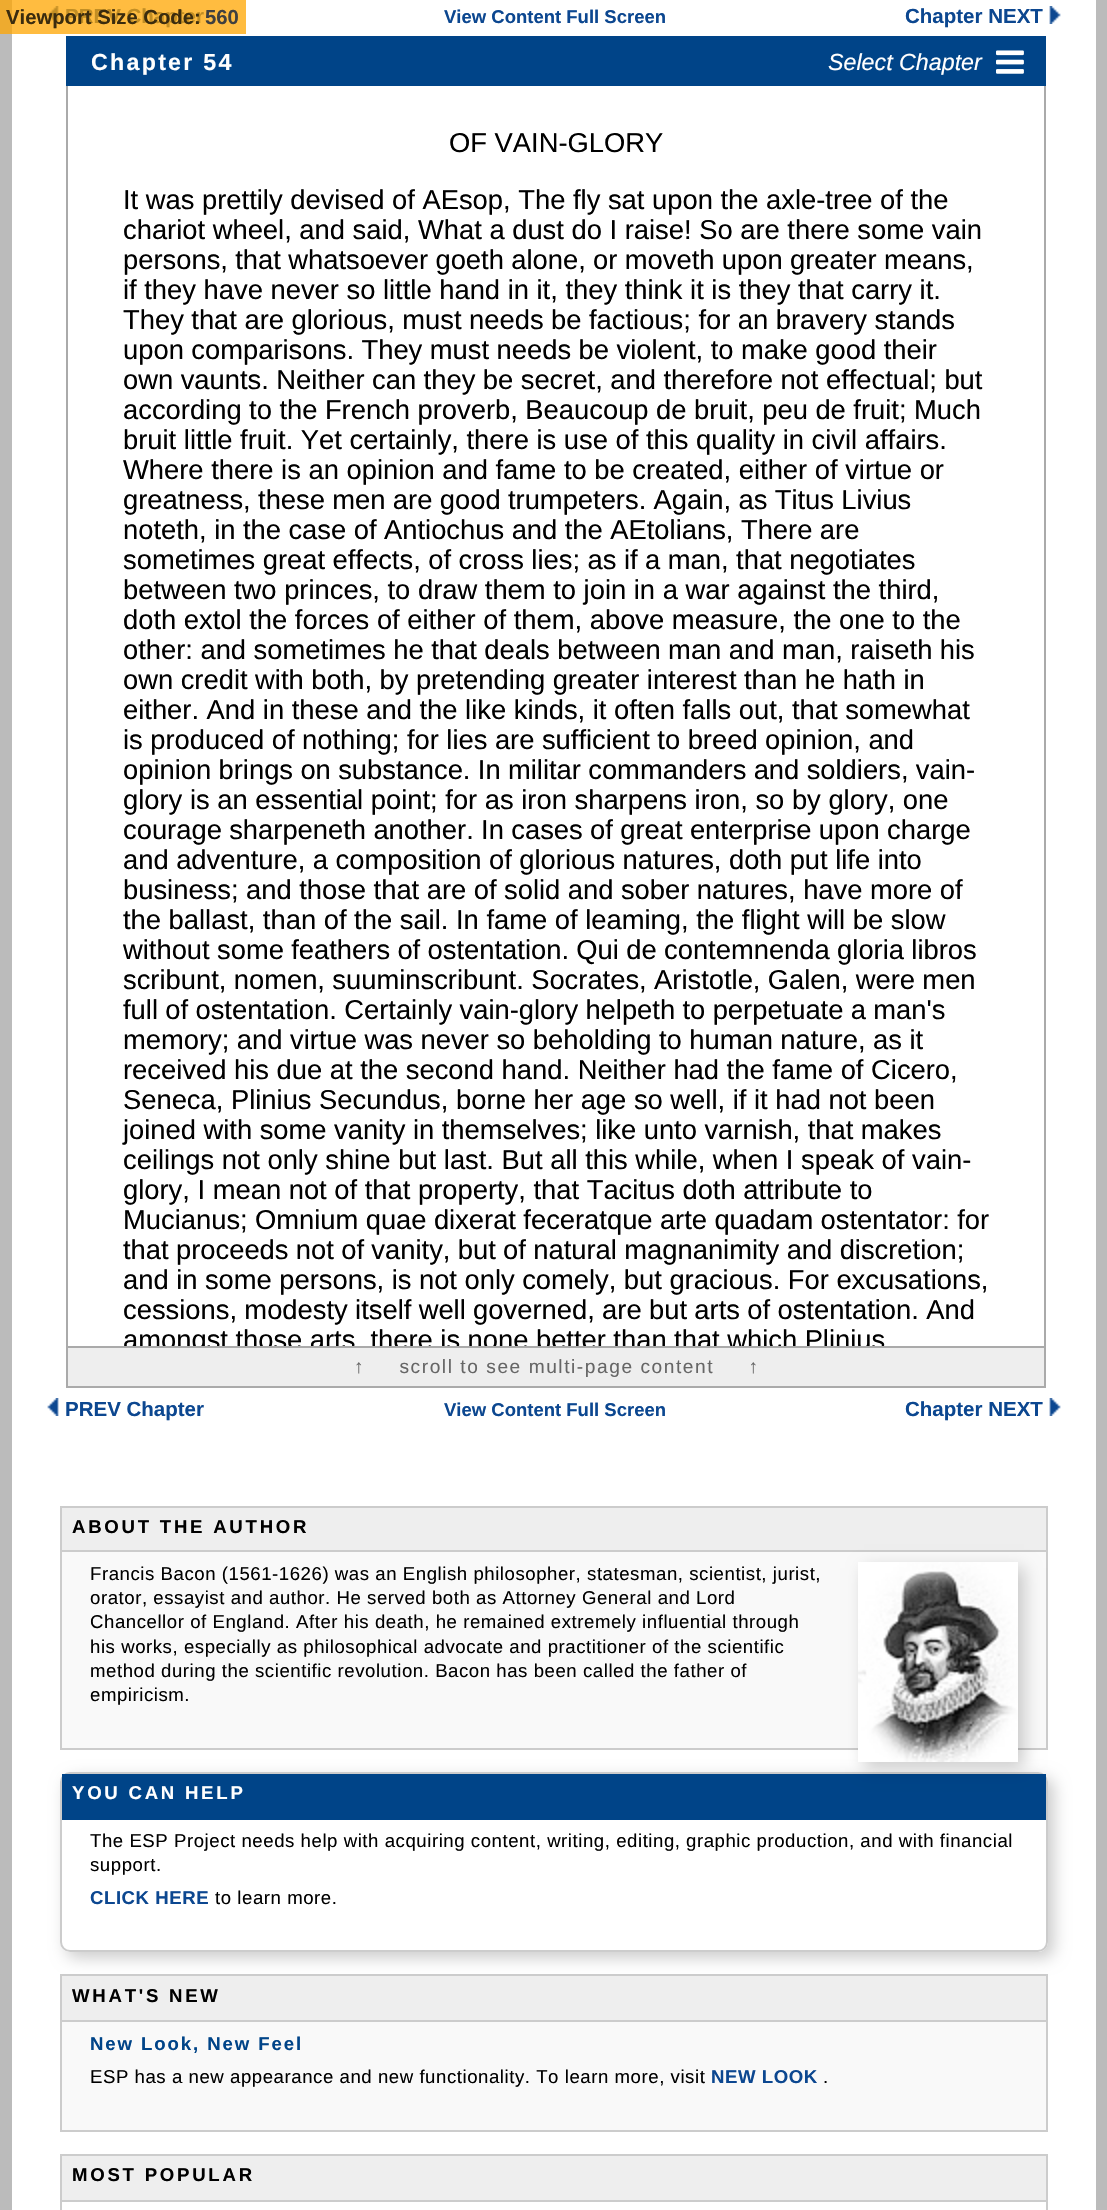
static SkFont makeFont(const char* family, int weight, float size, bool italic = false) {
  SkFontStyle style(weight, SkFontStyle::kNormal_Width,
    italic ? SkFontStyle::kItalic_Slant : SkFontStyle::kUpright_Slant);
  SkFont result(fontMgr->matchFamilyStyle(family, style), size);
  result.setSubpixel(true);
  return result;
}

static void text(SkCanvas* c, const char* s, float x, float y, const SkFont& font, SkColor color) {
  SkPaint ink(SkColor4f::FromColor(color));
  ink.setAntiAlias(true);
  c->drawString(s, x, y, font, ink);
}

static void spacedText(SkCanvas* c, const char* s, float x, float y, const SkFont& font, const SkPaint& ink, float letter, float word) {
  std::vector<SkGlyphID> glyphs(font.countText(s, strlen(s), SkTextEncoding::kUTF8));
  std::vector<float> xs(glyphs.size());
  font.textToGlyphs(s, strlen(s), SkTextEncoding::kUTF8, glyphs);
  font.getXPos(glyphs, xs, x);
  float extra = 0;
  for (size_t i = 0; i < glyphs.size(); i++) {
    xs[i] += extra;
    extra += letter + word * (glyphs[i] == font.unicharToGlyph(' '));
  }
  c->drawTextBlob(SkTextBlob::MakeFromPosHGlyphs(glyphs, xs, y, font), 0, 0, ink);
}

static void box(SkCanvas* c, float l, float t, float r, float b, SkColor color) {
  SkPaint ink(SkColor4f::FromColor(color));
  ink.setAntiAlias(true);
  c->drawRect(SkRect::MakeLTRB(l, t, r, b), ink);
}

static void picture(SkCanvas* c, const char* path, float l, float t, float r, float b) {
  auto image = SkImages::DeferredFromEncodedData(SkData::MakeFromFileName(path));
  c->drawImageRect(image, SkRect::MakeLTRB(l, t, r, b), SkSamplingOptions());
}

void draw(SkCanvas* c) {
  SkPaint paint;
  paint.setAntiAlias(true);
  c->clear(0xffbbbbbb);
  box(c, 0, 0, 12, 34, 0xffeeab2f);
  box(c, 12, 0, 1096, 2210, 0xffffffff);
  box(c, 12, 0, 246, 34, 0xffffbc40);
  picture(c, "img_01.png", 47, 6, 59, 24);
  SkFont face1 = makeFont("Liberation Sans", 700, 20.5f);
  text(c, "PREV Chapter", 65, 23, face1, 0xffc28e24);
  SkFont face2 = makeFont("Liberation Sans", 700, 18.5f);
  text(c, "View Content Full Screen", 444, 23, face2, 0xff0c4790);
  text(c, "Chapter NEXT", 905, 23, face1, 0xff0c4790);
  picture(c, "img_02.png", 1049, 6, 1061, 24);
  box(c, 66, 36, 1046, 86, 0xff004488);
  SkFont face3 = makeFont("Liberation Sans", 700, 23.25f);
  paint.setColor(0xffffffff);
  spacedText(c, "Chapter 54", 91, 70, face3, paint, 2.25f, 0);
  SkFont face4 = makeFont("Liberation Sans", 400, 23.25f, true);
  text(c, "Select Chapter", 828, 70, face4, 0xffffffff);
  picture(c, "img_03.png", 996, 50, 1024, 74);
  box(c, 1044, 86, 1046, 1346, 0xffaaaaaa);
  box(c, 66, 86, 68, 1346, 0xffaaaaaa);
  SkFont face5 = makeFont("Liberation Sans", 400, 27.35f);
  text(c, "OF VAIN-GLORY", 449, 152, face5, 0xff000000);
  text(c, "It was prettily devised of AEsop, The fly sat upon the axle-tree of the", 123, 209, face5, 0xff000000);
  text(c, "chariot wheel, and said, What a dust do I raise! So are there some vain", 123, 239, face5, 0xff000000);
  paint.setColor(0xff000000);
  spacedText(c, "persons, that whatsoever goeth alone, or moveth upon greater means,", 123, 269, face5, paint, 0, -0.25f);
  text(c, "if they have never so little hand in it, they think it is they that carry it.", 123, 299, face5, 0xff000000);
  spacedText(c, "They that are glorious, must needs be factious; for an bravery stands", 123, 329, face5, paint, 0, -0.1f);
  spacedText(c, "upon comparisons. They must needs be violent, to make good their", 123, 359, face5, paint, 0, -0.1f);
  spacedText(c, "own vaunts. Neither can they be secret, and therefore not effectual; but", 123, 389, face5, paint, 0, -0.1f);
  spacedText(c, "according to the French proverb, Beaucoup de bruit, peu de fruit; Much", 123, 419, face5, paint, 0, -0.1f);
  text(c, "bruit little fruit. Yet certainly, there is use of this quality in civil affairs.", 123, 449, face5, 0xff000000);
  text(c, "Where there is an opinion and fame to be created, either of virtue or", 123, 479, face5, 0xff000000);
  spacedText(c, "greatness, these men are good trumpeters. Again, as Titus Livius", 123, 509, face5, paint, 0, -0.25f);
  spacedText(c, "noteth, in the case of Antiochus and the AEtolians, There are", 123, 539, face5, paint, 0, -0.1f);
  spacedText(c, "sometimes great effects, of cross lies; as if a man, that negotiates", 123, 569, face5, paint, 0, -0.1f);
  text(c, "between two princes, to draw them to join in a war against the third,", 123, 599, face5, 0xff000000);
  text(c, "doth extol the forces of either of them, above measure, the one to the", 123, 629, face5, 0xff000000);
  spacedText(c, "other: and sometimes he that deals between man and man, raiseth his", 123, 659, face5, paint, 0, -0.1f);
  spacedText(c, "own credit with both, by pretending greater interest than he hath in", 123, 689, face5, paint, 0, -0.1f);
  text(c, "either. And in these and the like kinds, it often falls out, that somewhat", 123, 719, face5, 0xff000000);
  spacedText(c, "is produced of nothing; for lies are sufficient to breed opinion, and", 123, 749, face5, paint, 0, -0.1f);
  spacedText(c, "opinion brings on substance. In militar commanders and soldiers, vain-", 123, 779, face5, paint, 0, -0.25f);
  text(c, "glory is an essential point; for as iron sharpens iron, so by glory, one", 123, 809, face5, 0xff000000);
  spacedText(c, "courage sharpeneth another. In cases of great enterprise upon charge", 123, 839, face5, paint, 0, -0.25f);
  spacedText(c, "and adventure, a composition of glorious natures, doth put life into", 123, 869, face5, paint, 0, -0.1f);
  spacedText(c, "business; and those that are of solid and sober natures, have more of", 123, 899, face5, paint, 0, -0.1f);
  text(c, "the ballast, than of the sail. In fame of leaming, the flight will be slow", 123, 929, face5, 0xff000000);
  spacedText(c, "without some feathers of ostentation. Qui de contemnenda gloria libros", 123, 959, face5, paint, 0, -0.25f);
  spacedText(c, "scribunt, nomen, suuminscribunt. Socrates, Aristotle, Galen, were men", 123, 989, face5, paint, 0, -0.25f);
  spacedText(c, "full of ostentation. Certainly vain-glory helpeth to perpetuate a man's", 123, 1019, face5, paint, 0, -0.25f);
  spacedText(c, "memory; and virtue was never so beholding to human nature, as it", 123, 1049, face5, paint, 0, -0.1f);
  text(c, "received his due at the second hand. Neither had the fame of Cicero,", 123, 1079, face5, 0xff000000);
  text(c, "Seneca, Plinius Secundus, borne her age so well, if it had not been", 123, 1109, face5, 0xff000000);
  spacedText(c, "joined with some vanity in themselves; like unto varnish, that makes", 123, 1139, face5, paint, 0, -0.1f);
  text(c, "ceilings not only shine but last. But all this while, when I speak of vain-", 123, 1169, face5, 0xff000000);
  text(c, "glory, I mean not of that property, that Tacitus doth attribute to", 123, 1199, face5, 0xff000000);
  spacedText(c, "Mucianus; Omnium quae dixerat feceratque arte quadam ostentator: for", 123, 1229, face5, paint, 0, -0.25f);
  spacedText(c, "that proceeds not of vanity, but of natural magnanimity and discretion;", 123, 1259, face5, paint, 0, -0.25f);
  spacedText(c, "and in some persons, is not only comely, but gracious. For excusations,", 123, 1289, face5, paint, 0, -0.1f);
  spacedText(c, "cessions, modesty itself well governed, are but arts of ostentation. And", 123, 1319, face5, paint, 0, -0.25f);
  c->save();
  c->clipRect(SkRect::MakeLTRB(68, 86, 1044, 1346));
  spacedText(c, "amongst those arts, there is none better than that which Plinius", 123, 1349, face5, paint, 0, -0.1f);
  c->restore();
  paint.setColor(0xffeeeeee);
  c->drawRect(SkRect::MakeLTRB(67, 1347, 1045, 1387), paint);
  paint.setStyle(SkPaint::kStroke_Style);
  paint.setStrokeWidth(2);
  paint.setColor(0xffaaaaaa);
  c->drawRect(SkRect::MakeLTRB(67, 1347, 1045, 1387), paint);
  SkFont face6 = makeFont("Liberation Sans", 400, 19.15f);
  paint.setStyle(SkPaint::kFill_Style);
  paint.setColor(0xff666666);
  spacedText(c, "↑     scroll to see multi-page content     ↑", 354, 1373, face6, paint, 1.55f, 0);
  picture(c, "img_04.png", 47, 1398, 59, 1416);
  text(c, "PREV Chapter", 65, 1416, face1, 0xff0c4790);
  text(c, "View Content Full Screen", 444, 1416, face2, 0xff0c4790);
  text(c, "Chapter NEXT", 905, 1416, face1, 0xff0c4790);
  picture(c, "img_02.png", 1049, 1398, 1061, 1416);
  box(c, 62, 1552, 1046, 1748, 0xfff9f9f9);
  paint.setStyle(SkPaint::kStroke_Style);
  paint.setColor(0xffcccccc);
  c->drawRect(SkRect::MakeLTRB(61, 1507, 1047, 1749), paint);
  box(c, 62, 1508, 1046, 1550, 0xffeeeeee);
  box(c, 62, 1550, 1046, 1552, 0xffcccccc);
  SkFont face7 = makeFont("Liberation Sans", 700, 18.6f);
  paint.setStyle(SkPaint::kFill_Style);
  paint.setColor(0xff000000);
  spacedText(c, "ABOUT THE AUTHOR", 72, 1533, face7, paint, 2.75f, 0);
  SkFont face8 = makeFont("Liberation Sans", 400, 18.6f);
  spacedText(c, "Francis Bacon (1561-1626) was an English philosopher, statesman, scientist, jurist,", 90, 1580, face8, paint, 0.55f, 0);
  spacedText(c, "orator, essayist and author. He served both as Attorney General and Lord", 90, 1604, face8, paint, 0.55f, 0);
  spacedText(c, "Chancellor of England. After his death, he remained extremely influential through", 90, 1628, face8, paint, 0.55f, 0);
  spacedText(c, "his works, especially as philosophical advocate and practitioner of the scientific", 90, 1653, face8, paint, 0.55f, 0);
  spacedText(c, "method during the scientific revolution. Bacon has been called the father of", 90, 1677, face8, paint, 0.55f, 0);
  spacedText(c, "empiricism.", 90, 1701, face8, paint, 0.55f, 0);
  c->save();
  c->clipPath(SkPathBuilder(SkPathFillType::kEvenOdd).moveTo(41, 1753).lineTo(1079, 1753).lineTo(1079, 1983).lineTo(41, 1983).close().moveTo(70, 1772).lineTo(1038, 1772).cubicTo(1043.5f, 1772, 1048, 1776.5f, 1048, 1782).lineTo(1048, 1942).cubicTo(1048, 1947.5f, 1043.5f, 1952, 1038, 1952).lineTo(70, 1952).cubicTo(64.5f, 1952, 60, 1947.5f, 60, 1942).lineTo(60, 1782).cubicTo(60, 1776.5f, 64.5f, 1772, 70, 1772).close().detach(), true);
  paint.setColor(0x33000000);
  paint.setMaskFilter(SkMaskFilter::MakeBlur(kNormal_SkBlurStyle, 8));
  c->drawRoundRect(SkRect::MakeLTRB(66, 1778, 1054, 1958), 10, 10, paint);
  paint.setMaskFilter(nullptr);
  c->restore();
  paint.setStyle(SkPaint::kStroke_Style);
  paint.setColor(0xffcccccc);
  c->drawRoundRect(SkRect::MakeLTRB(61, 1773, 1047, 1951), 9, 9, paint);
  box(c, 62, 1774, 1046, 1820, 0xff004488);
  paint.setStyle(SkPaint::kFill_Style);
  paint.setColor(0x33000000);
  paint.setMaskFilter(SkMaskFilter::MakeBlur(kNormal_SkBlurStyle, 8));
  c->drawRect(SkRect::MakeLTRB(864, 1568, 1024, 1768), paint);
  paint.setMaskFilter(nullptr);
  picture(c, "img_05.png", 858, 1562, 1018, 1762);
  paint.setColor(0xffffffff);
  spacedText(c, "YOU CAN HELP", 72, 1799, face7, paint, 2.75f, 0);
  paint.setColor(0xff000000);
  spacedText(c, "The ESP Project needs help with acquiring content, writing, editing,", 90, 1847, face8, paint, 0.55f, 0);
  spacedText(c, "graphic production, and with financial", 686, 1847, face8, paint, 0.55f, 0);
  spacedText(c, "support.", 90, 1871, face8, paint, 0.55f, 0);
  paint.setColor(0xff0c4790);
  spacedText(c, "CLICK HERE", 90, 1904, face7, paint, 0.55f, 0);
  paint.setColor(0xff000000);
  spacedText(c, "to learn more.", 215, 1904, face8, paint, 0.55f, 0);
  box(c, 62, 2022, 1046, 2130, 0xfff9f9f9);
  paint.setStyle(SkPaint::kStroke_Style);
  paint.setColor(0xffcccccc);
  c->drawRect(SkRect::MakeLTRB(61, 1975, 1047, 2131), paint);
  box(c, 62, 1976, 1046, 2020, 0xffeeeeee);
  box(c, 62, 2020, 1046, 2022, 0xffcccccc);
  paint.setStyle(SkPaint::kFill_Style);
  paint.setColor(0xff000000);
  spacedText(c, "WHAT'S NEW", 72, 2002, face7, paint, 2.75f, 0);
  paint.setColor(0xff004488);
  spacedText(c, "New Look, New Feel", 90, 2050, face7, paint, 1.9f, 0);
  paint.setColor(0xff000000);
  spacedText(c, "ESP has a new appearance and new functionality. To learn more, visit", 90, 2083, face8, paint, 0.55f, 0);
  paint.setColor(0xff0c4790);
  spacedText(c, "NEW LOOK", 711, 2083, face7, paint, 0.55f, 0);
  paint.setColor(0xff000000);
  spacedText(c, ".", 823, 2083, face8, paint, 0.55f, 0);
  paint.setStyle(SkPaint::kStroke_Style);
  paint.setColor(0xffcccccc);
  c->drawRect(SkRect::MakeLTRB(61, 2155, 1047, 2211), paint);
  box(c, 62, 2156, 1046, 2200, 0xffeeeeee);
  box(c, 62, 2200, 1046, 2202, 0xffcccccc);
  paint.setStyle(SkPaint::kFill_Style);
  paint.setColor(0xff000000);
  spacedText(c, "MOST POPULAR", 72, 2181, face7, paint, 2.75f, 0);
  SkFont face9 = makeFont("Liberation Sans", 700, 20.25f);
  text(c, "Viewport Size Code:", 6, 24, face9, 0xff3b2c0e);
  text(c, "560", 205, 24, face9, 0xff404040);
}
